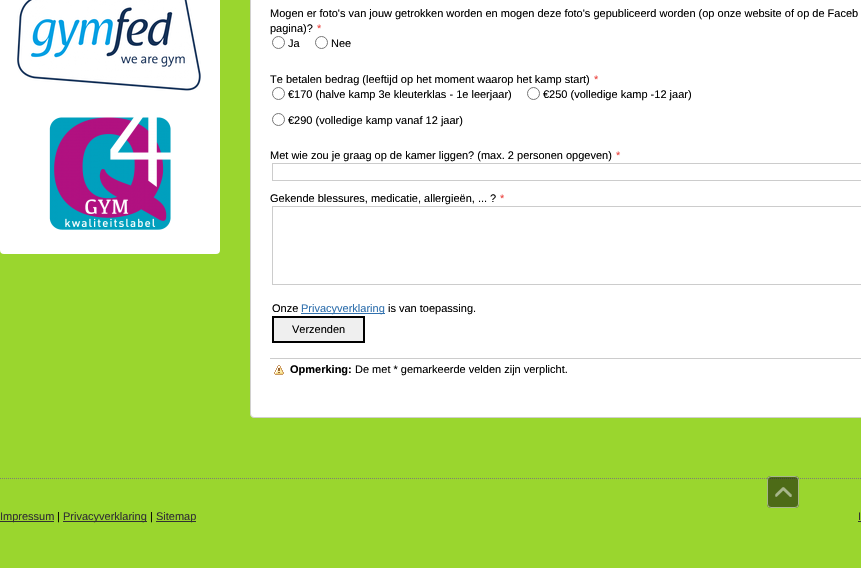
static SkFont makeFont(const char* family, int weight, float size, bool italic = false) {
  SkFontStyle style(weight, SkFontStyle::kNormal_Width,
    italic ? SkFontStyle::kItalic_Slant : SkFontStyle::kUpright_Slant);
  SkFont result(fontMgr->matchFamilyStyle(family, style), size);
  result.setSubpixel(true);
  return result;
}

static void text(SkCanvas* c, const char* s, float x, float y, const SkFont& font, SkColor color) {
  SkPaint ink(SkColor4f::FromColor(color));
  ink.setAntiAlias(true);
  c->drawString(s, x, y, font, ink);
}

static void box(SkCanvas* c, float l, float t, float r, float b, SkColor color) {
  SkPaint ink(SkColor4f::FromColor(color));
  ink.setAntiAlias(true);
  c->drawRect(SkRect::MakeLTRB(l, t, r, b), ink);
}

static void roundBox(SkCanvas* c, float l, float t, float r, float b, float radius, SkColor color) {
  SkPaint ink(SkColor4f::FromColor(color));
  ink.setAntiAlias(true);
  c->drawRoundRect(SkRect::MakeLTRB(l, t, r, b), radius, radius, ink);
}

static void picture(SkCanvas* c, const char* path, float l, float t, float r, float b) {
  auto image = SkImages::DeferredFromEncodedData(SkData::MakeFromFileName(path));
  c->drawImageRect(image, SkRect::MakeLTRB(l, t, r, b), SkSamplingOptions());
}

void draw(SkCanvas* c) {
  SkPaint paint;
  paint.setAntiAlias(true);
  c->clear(0xff9ad62e);
  roundBox(c, 0, -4, 220, 254, 4, 0xffffffff);
  picture(c, "img_01.png", 17, 0, 201, 91);
  picture(c, "img_02.png", 49, 117, 171, 230);
  paint.setColor(0xffffffff);
  c->drawRoundRect(SkRect::MakeLTRB(250.5f, -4.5f, 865.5f, 417.5f), 3.5f, 3.5f, paint);
  paint.setStyle(SkPaint::kStroke_Style);
  paint.setStrokeWidth(1);
  paint.setColor(0xffd1d0ce);
  c->drawRoundRect(SkRect::MakeLTRB(250.5f, -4.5f, 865.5f, 417.5f), 3.5f, 3.5f, paint);
  SkFont face1 = makeFont("Liberation Sans", 400, 11);
  text(c, "Mogen er foto's van jouw getrokken worden en mogen deze foto's gepubliceerd worden (op onze website of op de Faceb", 270, 17, face1, 0xff000000);
  text(c, "pagina)?", 270, 32, face1, 0xff000000);
  text(c, "*", 317, 32, face1, 0xffeb433e);
  paint.setColor(0xff767676);
  c->drawCircle(278.5f, 42.5f, 6, paint);
  text(c, "Ja", 288, 47, face1, 0xff000000);
  c->drawCircle(321.5f, 42.5f, 6, paint);
  text(c, "Nee", 331, 47, face1, 0xff000000);
  text(c, "Te betalen bedrag (leeftijd op het moment waarop het kamp start)", 270, 83, face1, 0xff000000);
  text(c, "*", 594, 83, face1, 0xffeb433e);
  c->drawCircle(278.5f, 93.5f, 6, paint);
  text(c, "€170 (halve kamp 3e kleuterklas - 1e leerjaar)", 288, 98, face1, 0xff000000);
  c->drawCircle(533.5f, 93.5f, 6, paint);
  text(c, "€250 (volledige kamp -12 jaar)", 543, 98, face1, 0xff000000);
  c->drawCircle(278.5f, 119.5f, 6, paint);
  text(c, "€290 (volledige kamp vanaf 12 jaar)", 288, 124, face1, 0xff000000);
  text(c, "Met wie zou je graag op de kamer liggen? (max. 2 personen opgeven)", 270, 159, face1, 0xff000000);
  text(c, "*", 616, 159, face1, 0xffeb433e);
  paint.setColor(0xffcccccc);
  c->drawRect(SkRect::MakeLTRB(272.5f, 163.5f, 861.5f, 180.5f), paint);
  text(c, "Gekende blessures, medicatie, allergieën, ... ?", 270, 202, face1, 0xff000000);
  text(c, "*", 500, 202, face1, 0xffeb433e);
  c->drawRect(SkRect::MakeLTRB(272.5f, 206.5f, 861.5f, 284.5f), paint);
  text(c, "Onze", 272, 312, face1, 0xff000000);
  box(c, 301, 313, 385, 314, 0xff3171ae);
  text(c, "Privacyverklaring", 301, 312, face1, 0xff3171ae);
  text(c, "is van toepassing.", 388, 312, face1, 0xff000000);
  paint.setStyle(SkPaint::kFill_Style);
  paint.setColor(0xffefefef);
  c->drawRect(SkRect::MakeLTRB(273, 317, 364, 342), paint);
  paint.setStyle(SkPaint::kStroke_Style);
  paint.setStrokeWidth(2);
  paint.setColor(0xff000000);
  c->drawRect(SkRect::MakeLTRB(273, 317, 364, 342), paint);
  text(c, "Verzenden", 292, 333, face1, 0xff000000);
  picture(c, "img_03.png", 274, 365, 284, 375);
  box(c, 270, 358, 861, 359, 0xffcccccc);
  SkFont face2 = makeFont("Liberation Sans", 700, 11);
  text(c, "Opmerking:", 290, 373, face2, 0xff000000);
  text(c, "De met * gemarkeerde velden zijn verplicht.", 355, 373, face1, 0xff000000);
  paint.setStrokeWidth(1);
  paint.setColor(0xff7f7f72);
  paint.setPathEffect(SkDashPathEffect::Make({{1, 1}}, 0));
  c->drawPath(SkPathBuilder().moveTo(0, 478.5f).lineTo(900, 478.5f).detach(), paint);
  paint.setPathEffect(nullptr);
  box(c, 0, 521, 54, 522, 0xff323232);
  text(c, "Impressum", 0, 520, face1, 0xff323232);
  text(c, "|", 57, 520, face1, 0xff000000);
  box(c, 63, 521, 147, 522, 0xff323232);
  text(c, "Privacyverklaring", 63, 520, face1, 0xff323232);
  text(c, "|", 150, 520, face1, 0xff000000);
  box(c, 156, 521, 196, 522, 0xff323232);
  text(c, "Sitemap", 156, 520, face1, 0xff323232);
  text(c, "I", 858, 520, face1, 0xff323232);
  box(c, 858, 521, 861, 522, 0xff323232);
  roundBox(c, 767, 476, 799, 508, 4, 0x80000000);
  paint.setColor(0x80ffffff);
  c->drawRoundRect(SkRect::MakeLTRB(767.5f, 476.5f, 798.5f, 507.5f), 3.5f, 3.5f, paint);
  picture(c, "img_04.png", 775, 487, 792, 497);
}
